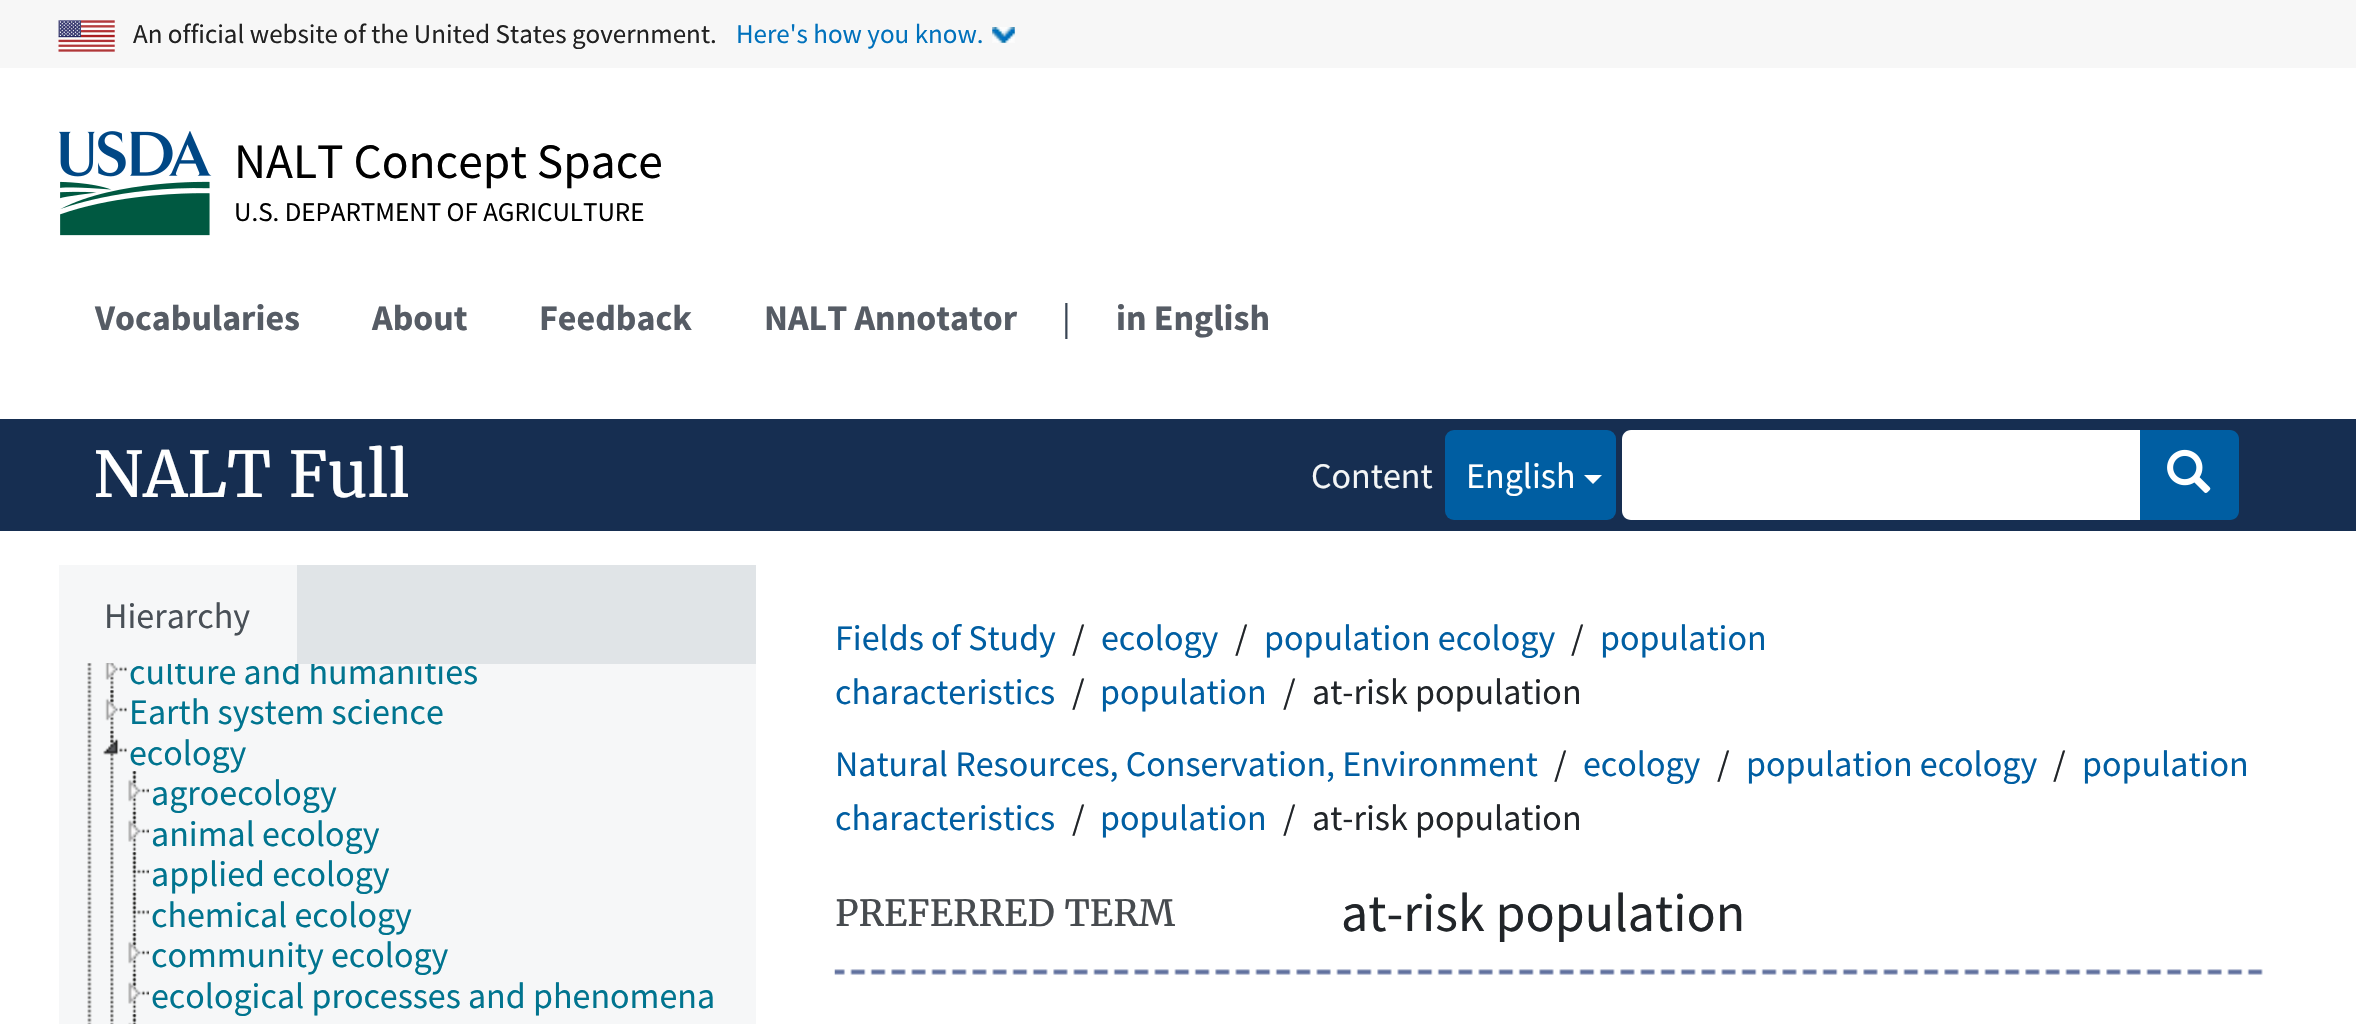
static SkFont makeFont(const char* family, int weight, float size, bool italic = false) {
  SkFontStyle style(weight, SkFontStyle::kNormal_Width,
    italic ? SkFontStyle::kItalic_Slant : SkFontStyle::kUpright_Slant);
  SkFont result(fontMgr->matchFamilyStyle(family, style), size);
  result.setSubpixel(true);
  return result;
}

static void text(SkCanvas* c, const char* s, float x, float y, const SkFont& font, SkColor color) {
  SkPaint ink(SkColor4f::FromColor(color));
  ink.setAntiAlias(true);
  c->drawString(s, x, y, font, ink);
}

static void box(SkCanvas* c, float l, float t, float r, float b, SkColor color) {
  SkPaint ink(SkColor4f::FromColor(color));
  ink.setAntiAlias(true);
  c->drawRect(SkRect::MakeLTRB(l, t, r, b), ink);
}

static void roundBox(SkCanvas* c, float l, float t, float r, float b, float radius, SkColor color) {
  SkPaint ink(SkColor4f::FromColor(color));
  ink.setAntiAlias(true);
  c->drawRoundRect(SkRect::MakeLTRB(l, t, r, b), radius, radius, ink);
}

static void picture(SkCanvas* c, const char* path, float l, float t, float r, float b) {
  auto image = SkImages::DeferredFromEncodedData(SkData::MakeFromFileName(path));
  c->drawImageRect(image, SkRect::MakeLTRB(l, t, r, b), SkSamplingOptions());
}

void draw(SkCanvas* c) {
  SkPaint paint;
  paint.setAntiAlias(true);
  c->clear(0xffffffff);
  box(c, 0, 0, 2356, 68, 0xfff7f7f7);
  picture(c, "img_01.png", 58, 20, 115, 52);
  SkFont face1 = makeFont("Source Sans Pro", 400, 27);
  text(c, "An official website of the United States government.", 133, 43, face1, 0xff212121);
  picture(c, "img_02.png", 992, 27, 1015, 43);
  text(c, "Here's how you know.", 736, 43, face1, 0xff0071bc);
  picture(c, "img_03.png", 59, 131, 212, 236);
  SkFont face2 = makeFont("Source Sans Pro", 400, 49.5f);
  text(c, "NALT Concept Space", 234, 178, face2, 0xff000000);
  text(c, "U.S. DEPARTMENT OF AGRICULTURE", 234, 221, face1, 0xff000000);
  SkFont face3 = makeFont("Source Sans Pro", 700, 36);
  text(c, "Vocabularies", 95, 330, face3, 0xff565c65);
  text(c, "About", 372, 330, face3, 0xff565c65);
  text(c, "Feedback", 539, 330, face3, 0xff565c65);
  text(c, "NALT Annotator", 764, 330, face3, 0xff565c65);
  SkFont face4 = makeFont("Source Sans Pro", 400, 36);
  text(c, "|", 1062, 330, face4, 0xff394554);
  text(c, "in English", 1116, 330, face3, 0xff565c65);
  box(c, 0, 419, 2356, 531, 0xff162e51);
  SkFont face5 = makeFont("Merriweather", 400, 63);
  text(c, "NALT Full", 93, 497, face5, 0xffffffff);
  text(c, "Content", 1311, 488, face4, 0xfff3f5f6);
  roundBox(c, 1445, 430, 1616, 520, 9, 0xff005ea2);
  text(c, "English", 1466, 488, face4, 0xffffffff);
  paint.setColor(0xffffffff);
  c->drawPath(SkPathBuilder().moveTo(1584, 475).lineTo(1602, 475).lineTo(1593, 484).close().detach(), paint);
  c->drawPath(SkPathBuilder().moveTo(1631, 430).lineTo(2142, 430).lineTo(2142, 520).lineTo(1631, 520).cubicTo(1626, 520, 1622, 516, 1622, 511).lineTo(1622, 439).cubicTo(1622, 434, 1626, 430, 1631, 430).close().detach(), paint);
  paint.setColor(0xff005ea2);
  c->drawPath(SkPathBuilder().moveTo(2140, 430).lineTo(2230, 430).cubicTo(2235, 430, 2239, 434, 2239, 439).lineTo(2239, 511).cubicTo(2239, 516, 2235, 520, 2230, 520).lineTo(2140, 520).close().detach(), paint);
  picture(c, "img_04.png", 2167, 449, 2211, 493);
  box(c, 297, 565, 756, 664, 0xffe0e4e7);
  box(c, 59, 565, 297, 664, 0xfff6f7f8);
  text(c, "Hierarchy", 104, 628, face4, 0xff495057);
  box(c, 59, 664, 756, 1024, 0xfff6f7f8);
  picture(c, "img_05.png", 87, 663, 92, 1024);
  picture(c, "img_06.png", 110, 663, 114, 690);
  picture(c, "img_07.png", 105, 663, 127, 680);
  c->save();
  c->clipRect(SkRect::MakeLTRB(59, 664, 756, 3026));
  text(c, "culture and humanities", 129, 684, face4, 0xff00748f);
  c->restore();
  picture(c, "img_08.png", 110, 690, 114, 730);
  picture(c, "img_09.png", 105, 690, 127, 721);
  text(c, "Earth system science", 129, 724, face4, 0xff00748f);
  picture(c, "img_10.png", 110, 730, 114, 1024);
  picture(c, "img_11.png", 103, 730, 127, 755);
  picture(c, "img_12.png", 132, 771, 137, 811);
  text(c, "ecology", 129, 765, face4, 0xff00748f);
  picture(c, "img_13.png", 128, 771, 149, 802);
  text(c, "agroecology", 151, 805, face4, 0xff00748f);
  picture(c, "img_14.png", 132, 811, 137, 852);
  picture(c, "img_15.png", 128, 811, 149, 842);
  text(c, "animal ecology", 151, 846, face4, 0xff00748f);
  picture(c, "img_16.png", 132, 852, 137, 892);
  picture(c, "img_17.png", 132, 852, 149, 874);
  text(c, "applied ecology", 151, 886, face4, 0xff00748f);
  picture(c, "img_18.png", 132, 892, 137, 933);
  picture(c, "img_19.png", 132, 892, 149, 915);
  text(c, "chemical ecology", 151, 927, face4, 0xff00748f);
  picture(c, "img_16.png", 132, 933, 137, 973);
  picture(c, "img_20.png", 128, 933, 149, 964);
  text(c, "community ecology", 151, 967, face4, 0xff00748f);
  picture(c, "img_21.png", 132, 973, 137, 1014);
  picture(c, "img_22.png", 128, 973, 149, 1004);
  text(c, "ecological processes and phenomena", 151, 1008, face4, 0xff00748f);
  picture(c, "img_23.png", 132, 1014, 137, 1024);
  picture(c, "img_24.png", 128, 1014, 137, 1024);
  text(c, "Fields of Study", 835, 650, face4, 0xff005ea2);
  text(c, "/", 1072, 650, face4, 0xff212529);
  text(c, "ecology", 1101, 650, face4, 0xff005ea2);
  text(c, "/", 1235, 650, face4, 0xff212529);
  text(c, "population ecology", 1264, 650, face4, 0xff005ea2);
  text(c, "/", 1571, 650, face4, 0xff212529);
  text(c, "population", 1600, 650, face4, 0xff005ea2);
  text(c, "characteristics", 835, 704, face4, 0xff005ea2);
  text(c, "/", 1072, 704, face4, 0xff212529);
  text(c, "population", 1100, 704, face4, 0xff005ea2);
  text(c, "/", 1283, 704, face4, 0xff212529);
  text(c, "at-risk population", 1312, 704, face4, 0xff212529);
  text(c, "Natural Resources, Conservation, Environment", 835, 776, face4, 0xff005ea2);
  text(c, "/", 1554, 776, face4, 0xff212529);
  text(c, "ecology", 1583, 776, face4, 0xff005ea2);
  text(c, "/", 1717, 776, face4, 0xff212529);
  text(c, "population ecology", 1746, 776, face4, 0xff005ea2);
  text(c, "/", 2053, 776, face4, 0xff212529);
  text(c, "population", 2082, 776, face4, 0xff005ea2);
  text(c, "characteristics", 835, 830, face4, 0xff005ea2);
  text(c, "/", 1072, 830, face4, 0xff212529);
  text(c, "population", 1100, 830, face4, 0xff005ea2);
  text(c, "/", 1283, 830, face4, 0xff212529);
  text(c, "at-risk population", 1312, 830, face4, 0xff212529);
  SkFont face6 = makeFont("Merriweather", 400, 36);
  text(c, "PREFERRED TERM", 835, 926, face6, 0xff474b4f);
  SkFont face7 = makeFont("Source Sans Pro", 400, 54);
  text(c, "at-risk population", 1341, 931, face7, 0xff212529);
  picture(c, "img_25.png", 834, 969, 2263, 975);
}
